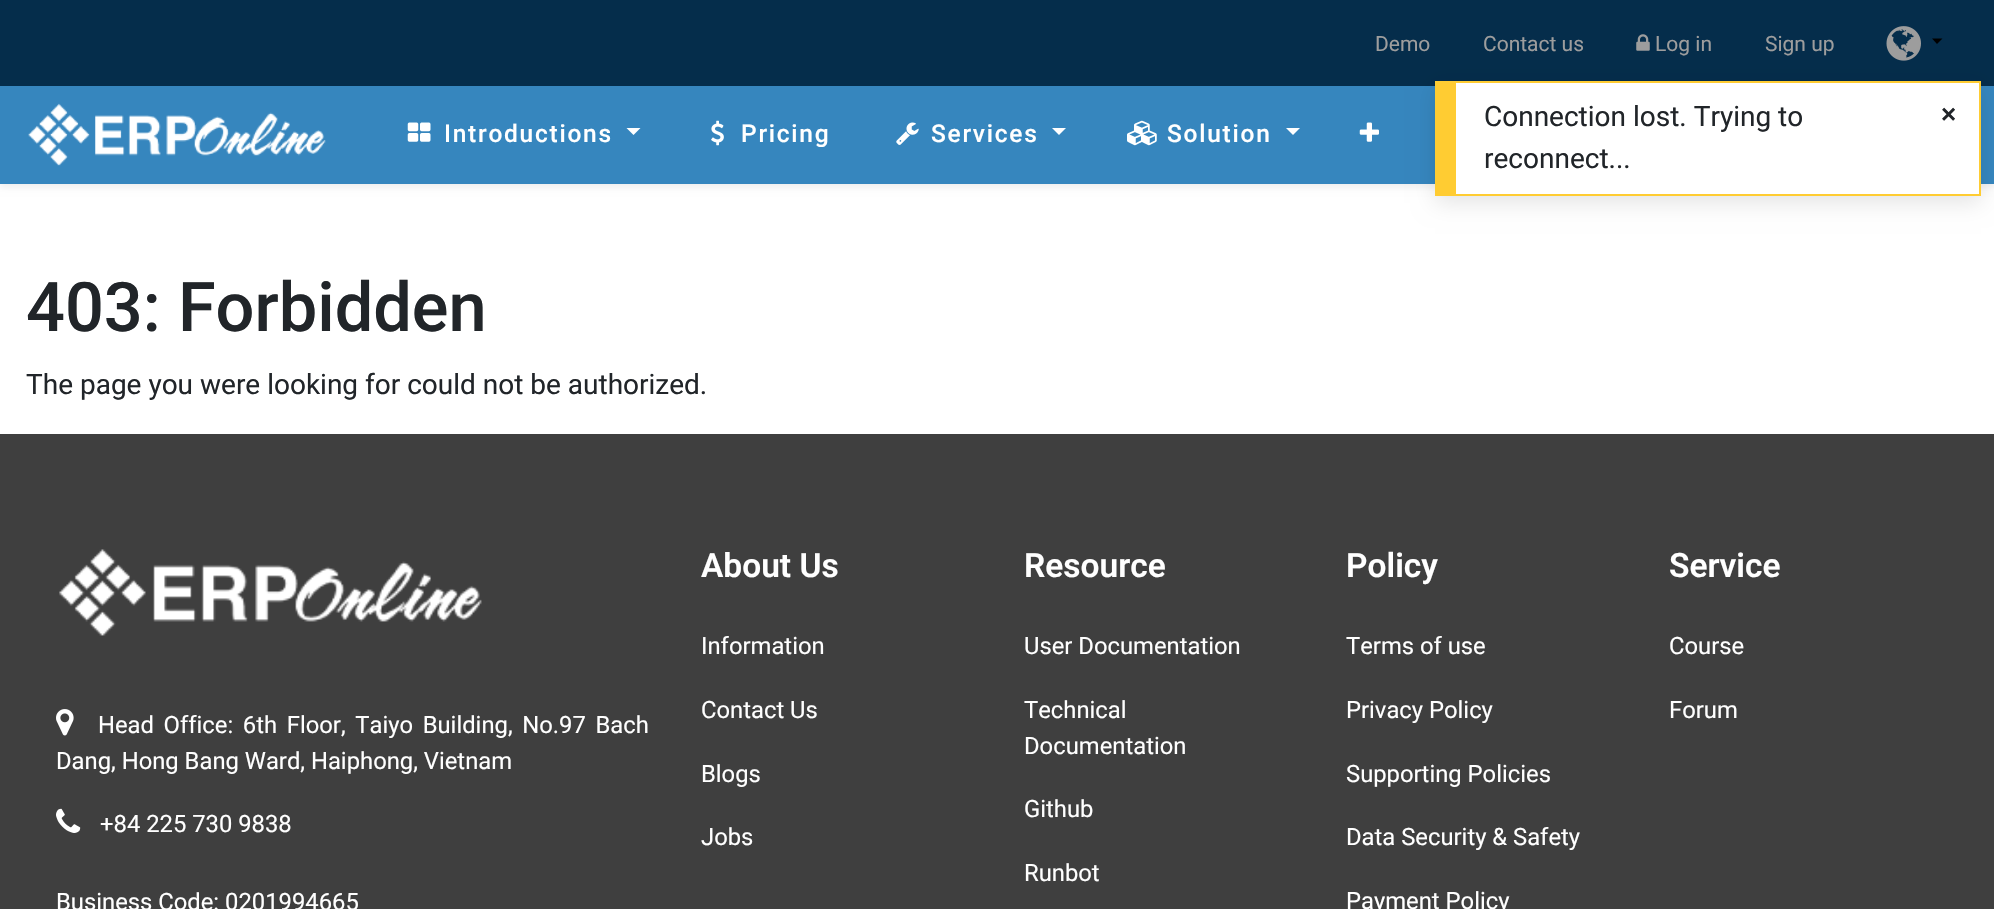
static SkFont makeFont(const char* family, int weight, float size, bool italic = false) {
  SkFontStyle style(weight, SkFontStyle::kNormal_Width,
    italic ? SkFontStyle::kItalic_Slant : SkFontStyle::kUpright_Slant);
  SkFont result(fontMgr->matchFamilyStyle(family, style), size);
  result.setSubpixel(true);
  return result;
}

static void text(SkCanvas* c, const char* s, float x, float y, const SkFont& font, SkColor color) {
  SkPaint ink(SkColor4f::FromColor(color));
  ink.setAntiAlias(true);
  c->drawString(s, x, y, font, ink);
}

static void spacedText(SkCanvas* c, const char* s, float x, float y, const SkFont& font, const SkPaint& ink, float letter, float word) {
  std::vector<SkGlyphID> glyphs(font.countText(s, strlen(s), SkTextEncoding::kUTF8));
  std::vector<float> xs(glyphs.size());
  font.textToGlyphs(s, strlen(s), SkTextEncoding::kUTF8, glyphs);
  font.getXPos(glyphs, xs, x);
  float extra = 0;
  for (size_t i = 0; i < glyphs.size(); i++) {
    xs[i] += extra;
    extra += letter + word * (glyphs[i] == font.unicharToGlyph(' '));
  }
  c->drawTextBlob(SkTextBlob::MakeFromPosHGlyphs(glyphs, xs, y, font), 0, 0, ink);
}

static void box(SkCanvas* c, float l, float t, float r, float b, SkColor color) {
  SkPaint ink(SkColor4f::FromColor(color));
  ink.setAntiAlias(true);
  c->drawRect(SkRect::MakeLTRB(l, t, r, b), ink);
}

static void picture(SkCanvas* c, const char* path, float l, float t, float r, float b) {
  auto image = SkImages::DeferredFromEncodedData(SkData::MakeFromFileName(path));
  c->drawImageRect(image, SkRect::MakeLTRB(l, t, r, b), SkSamplingOptions());
}

void draw(SkCanvas* c) {
  SkPaint paint;
  paint.setAntiAlias(true);
  c->clear(0xffffffff);
  paint.setColor(0x12000000);
  paint.setMaskFilter(SkMaskFilter::MakeBlur(kNormal_SkBlurStyle, 3.5f));
  c->drawRect(SkRect::MakeLTRB(0, 89, 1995, 187), paint);
  paint.setMaskFilter(nullptr);
  box(c, 0, 0, 1994, 86, 0xff052d4b);
  SkFont face1 = makeFont("Roboto", 400, 21);
  text(c, "Demo", 1375, 51, face1, 0xff9d9d9d);
  text(c, "Contact us", 1483, 51, face1, 0xff9d9d9d);
  picture(c, "img_01.png", 1636, 34, 1650, 51);
  text(c, "Log in", 1655, 51, face1, 0xff9d9d9d);
  text(c, "Sign up", 1765, 51, face1, 0xff9d9d9d);
  picture(c, "img_02.png", 1886, 26, 1921, 61);
  paint.setColor(0xff000000);
  c->drawPath(SkPathBuilder().moveTo(1932, 38.5f).lineTo(1942.5f, 38.5f).lineTo(1937, 44).close().detach(), paint);
  box(c, 0, 86, 1994, 184, 0xff3686be);
  picture(c, "img_03.png", 28, 103, 326, 166);
  picture(c, "img_04.png", 407, 122, 431, 142);
  SkFont face2 = makeFont("Roboto", 500, 24.5f);
  paint.setColor(0xffffffff);
  spacedText(c, "Introductions", 444, 142, face2, paint, 1.75f, 0);
  c->drawPath(SkPathBuilder().moveTo(626.5f, 128).lineTo(640.5f, 128).lineTo(633.5f, 135).close().detach(), paint);
  picture(c, "img_05.png", 711, 120, 724, 146);
  spacedText(c, "Pricing", 741, 142, face2, paint, 1.75f, 0);
  picture(c, "img_06.png", 896, 122, 919, 145);
  spacedText(c, "Services", 931, 142, face2, paint, 1.75f, 0);
  c->drawPath(SkPathBuilder().moveTo(1052, 128).lineTo(1066, 128).lineTo(1059, 135).close().detach(), paint);
  picture(c, "img_07.png", 1127, 120, 1157, 146);
  spacedText(c, "Solution", 1167, 142, face2, paint, 1.75f, 0);
  c->drawPath(SkPathBuilder().moveTo(1286, 128).lineTo(1300, 128).lineTo(1293, 135).close().detach(), paint);
  picture(c, "img_08.png", 1359, 122, 1379, 142);
  SkFont face3 = makeFont("Roboto", 500, 68.5f);
  text(c, "403: Forbidden", 26, 331, face3, 0xff212529);
  SkFont face4 = makeFont("Roboto", 400, 28);
  text(c, "The page you were looking for could not be authorized.", 26, 394, face4, 0xff212529);
  box(c, 0, 434, 1994, 909, 0xff3f3f3f);
  picture(c, "img_09.png", 59, 549, 482, 636);
  picture(c, "img_10.png", 56, 709, 74, 736);
  SkFont face5 = makeFont("Roboto", 400, 23.8f);
  spacedText(c, "Head Office: 6th Floor, Taiyo Building, No.97 Bach", 98, 733, face5, paint, 0, 3.75f);
  text(c, "Dang, Hong Bang Ward, Haiphong, Vietnam", 56, 769, face5, 0xffffffff);
  picture(c, "img_11.png", 56, 808, 81, 833);
  text(c, "+84 225 730 9838", 100, 832, face5, 0xffffffff);
  text(c, "Business Code: 0201994665", 56, 910, face5, 0xffffffff);
  SkFont face6 = makeFont("Roboto", 600, 33.5f);
  text(c, "About Us", 701, 577, face6, 0xffffffff);
  text(c, "Information", 701, 654, face5, 0xffffffff);
  text(c, "Contact Us", 701, 718, face5, 0xffffffff);
  text(c, "Blogs", 701, 782, face5, 0xffffffff);
  text(c, "Jobs", 701, 845, face5, 0xffffffff);
  text(c, "Resource", 1024, 577, face6, 0xffffffff);
  text(c, "User Documentation", 1024, 654, face5, 0xffffffff);
  text(c, "Technical", 1024, 718, face5, 0xffffffff);
  text(c, "Documentation", 1024, 754, face5, 0xffffffff);
  text(c, "Github", 1024, 817, face5, 0xffffffff);
  text(c, "Runbot", 1024, 881, face5, 0xffffffff);
  text(c, "Policy", 1346, 577, face6, 0xffffffff);
  text(c, "Terms of use", 1346, 654, face5, 0xffffffff);
  text(c, "Privacy Policy", 1346, 718, face5, 0xffffffff);
  text(c, "Supporting Policies", 1346, 782, face5, 0xffffffff);
  text(c, "Data Security & Safety", 1346, 845, face5, 0xffffffff);
  text(c, "Payment Policy", 1346, 909, face5, 0xffffffff);
  text(c, "Service", 1669, 577, face6, 0xffffffff);
  text(c, "Course", 1669, 654, face5, 0xffffffff);
  text(c, "Forum", 1669, 718, face5, 0xffffffff);
  paint.setColor(0x1a000000);
  paint.setMaskFilter(SkMaskFilter::MakeBlur(kNormal_SkBlurStyle, 10.5f));
  c->drawRect(SkRect::MakeLTRB(1435, 88, 1981, 203), paint);
  paint.setMaskFilter(nullptr);
  box(c, 1456, 83, 1979, 194, 0xffffffff);
  box(c, 1456, 81, 1981, 83, 0xffffcc32);
  box(c, 1979, 81, 1981, 196, 0xffffcc32);
  box(c, 1456, 194, 1981, 196, 0xffffcc32);
  box(c, 1435, 81, 1456, 196, 0xffffcc32);
  text(c, "Connection lost. Trying to", 1484, 126, face4, 0xff212529);
  text(c, "reconnect...", 1484, 168, face4, 0xff212529);
  SkFont face7 = makeFont("Liberation Sans", 700, 26);
  text(c, "×", 1941, 123, face7, 0xff212529);
}
